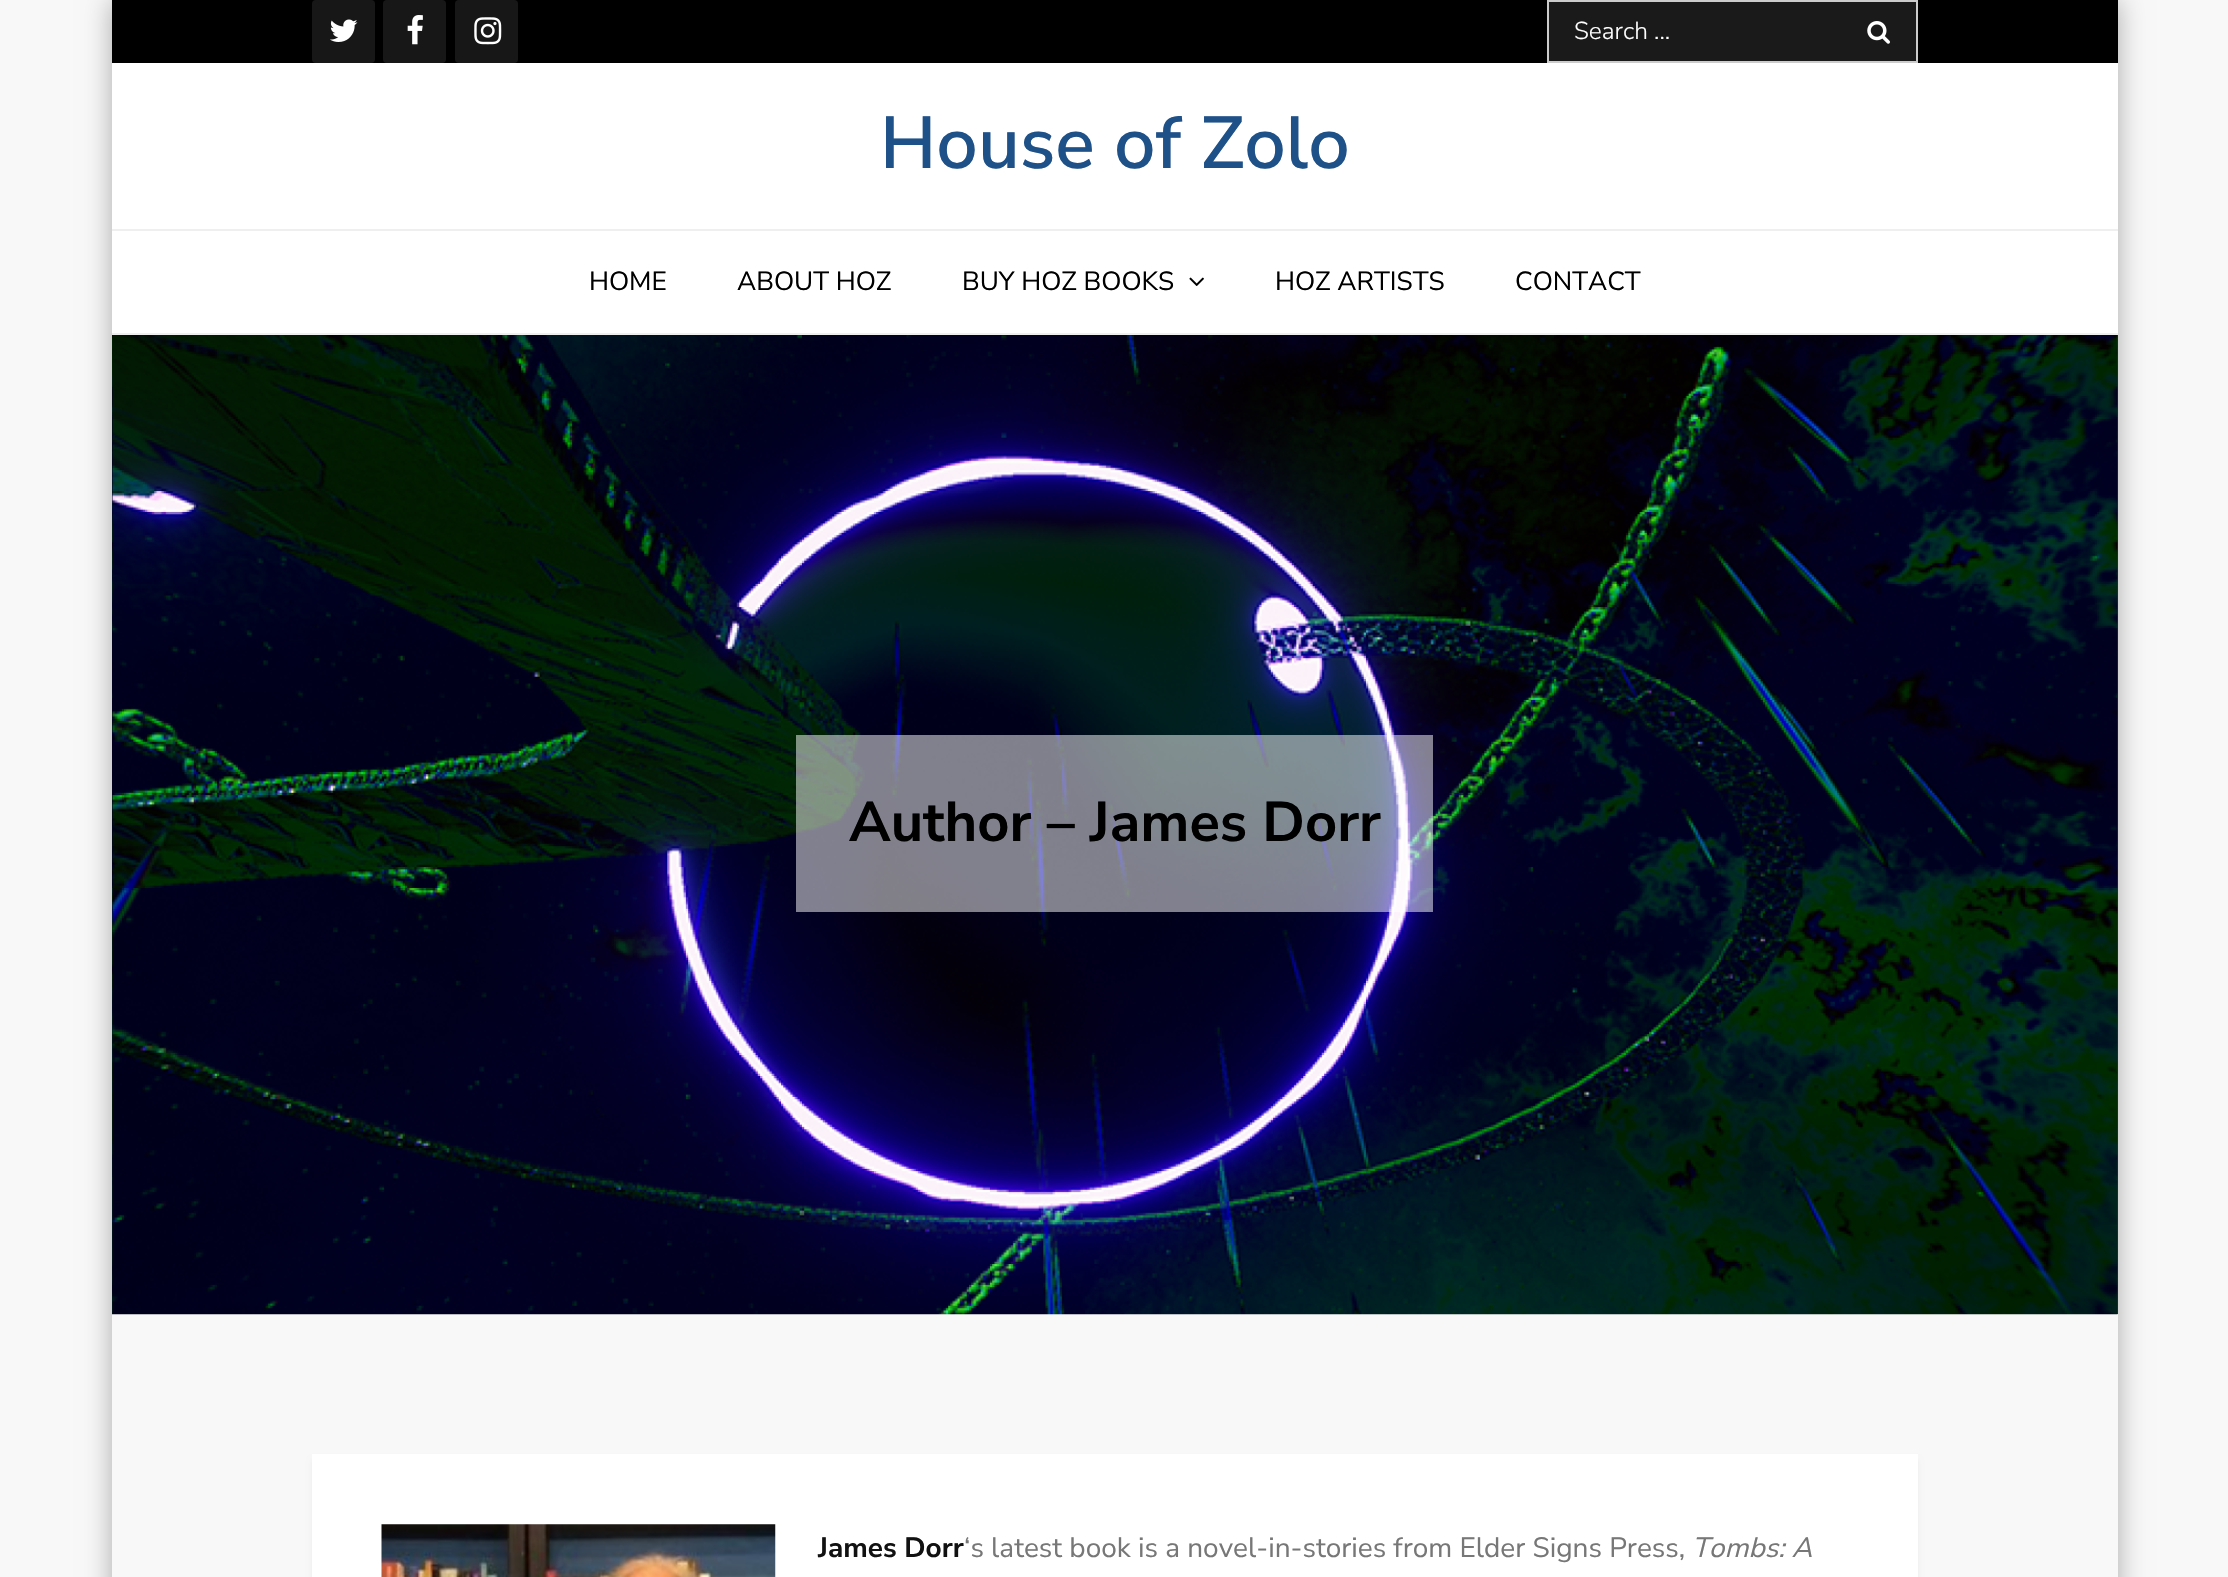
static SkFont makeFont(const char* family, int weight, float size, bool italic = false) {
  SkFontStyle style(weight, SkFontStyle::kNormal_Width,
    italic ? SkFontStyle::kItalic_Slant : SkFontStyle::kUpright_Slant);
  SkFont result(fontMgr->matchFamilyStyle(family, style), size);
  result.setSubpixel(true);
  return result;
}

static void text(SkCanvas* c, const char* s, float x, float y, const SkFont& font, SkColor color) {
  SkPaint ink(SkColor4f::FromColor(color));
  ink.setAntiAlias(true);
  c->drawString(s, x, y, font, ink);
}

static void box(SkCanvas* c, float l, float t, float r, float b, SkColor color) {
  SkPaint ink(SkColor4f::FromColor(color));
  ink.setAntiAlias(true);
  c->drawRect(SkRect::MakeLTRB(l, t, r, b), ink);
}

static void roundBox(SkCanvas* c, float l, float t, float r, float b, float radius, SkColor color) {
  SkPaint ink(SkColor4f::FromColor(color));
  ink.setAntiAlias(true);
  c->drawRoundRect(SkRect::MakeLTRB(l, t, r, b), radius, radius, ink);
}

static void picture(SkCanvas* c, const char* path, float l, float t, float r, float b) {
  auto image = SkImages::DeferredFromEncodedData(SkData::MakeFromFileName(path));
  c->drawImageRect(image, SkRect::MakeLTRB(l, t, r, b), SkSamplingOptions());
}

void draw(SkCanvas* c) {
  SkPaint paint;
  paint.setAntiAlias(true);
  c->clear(0xfff8f8f8);
  c->save();
  c->clipPath(SkPathBuilder(SkPathFillType::kEvenOdd).moveTo(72, 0).lineTo(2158, 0).lineTo(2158, 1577).lineTo(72, 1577).close().moveTo(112, 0).lineTo(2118, 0).lineTo(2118, 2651).lineTo(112, 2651).close().detach(), true);
  paint.setColor(0xffaaaaaa);
  paint.setMaskFilter(SkMaskFilter::MakeBlur(kNormal_SkBlurStyle, 13));
  c->drawRect(SkRect::MakeLTRB(112, 0, 2118, 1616), paint);
  paint.setMaskFilter(nullptr);
  c->restore();
  box(c, 112, 0, 2118, 63, 0xff000000);
  roundBox(c, 312, 0, 375, 63, 4, 0xff171717);
  picture(c, "img_01.png", 330, 19, 358, 42);
  roundBox(c, 383, 0, 446, 63, 4, 0xff171717);
  picture(c, "img_02.png", 407, 15, 423, 45);
  roundBox(c, 455, 0, 518, 63, 4, 0xff171717);
  picture(c, "img_03.png", 474, 17, 502, 45);
  paint.setColor(0xff1a1a1a);
  c->drawRect(SkRect::MakeLTRB(1548, 1, 1917, 62), paint);
  paint.setStyle(SkPaint::kStroke_Style);
  paint.setStrokeWidth(2);
  paint.setColor(0xffcccccc);
  c->drawRect(SkRect::MakeLTRB(1548, 1, 1917, 62), paint);
  SkFont face1 = makeFont("Nunito Sans", 300, 24.5f);
  text(c, "Search ...", 1574, 39, face1, 0xffffffff);
  picture(c, "img_04.png", 1867, 21, 1890, 44);
  box(c, 112, 63, 2118, 333, 0xffffffff);
  SkFont face2 = makeFont("Nunito Sans", 600, 73.5f);
  text(c, "House of Zolo", 880, 168, face2, 0xff1f5189);
  box(c, 112, 229, 2118, 231, 0xffefefef);
  box(c, 112, 333, 2118, 335, 0xffefefef);
  SkFont face3 = makeFont("Nunito Sans", 400, 26.25f);
  text(c, "HOME", 589, 290, face3, 0xff000000);
  text(c, "ABOUT HOZ", 737, 290, face3, 0xff000000);
  text(c, "BUY HOZ BOOKS", 962, 290, face3, 0xff000000);
  picture(c, "img_05.png", 1189, 277, 1204, 286);
  text(c, "HOZ ARTISTS", 1275, 290, face3, 0xff000000);
  text(c, "CONTACT", 1515, 290, face3, 0xff000000);
  box(c, 2117, 335, 2118, 1314, 0xff333333);
  picture(c, "img_06.png", 112, 335, 2118, 1315);
  box(c, 796, 735, 1433, 912, 0x80ffffff);
  SkFont face4 = makeFont("Nunito Sans", 700, 56);
  text(c, "Author – James Dorr", 849, 841, face4, 0xff000000);
  paint.setStyle(SkPaint::kFill_Style);
  paint.setColor(0x0d000000);
  paint.setMaskFilter(SkMaskFilter::MakeBlur(kNormal_SkBlurStyle, 2.5f));
  c->drawRect(SkRect::MakeLTRB(312, 1460, 1918, 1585), paint);
  paint.setMaskFilter(nullptr);
  box(c, 312, 1454, 1918, 1577, 0xffffffff);
  picture(c, "img_07.png", 381, 1524, 776, 1577);
  SkFont face5 = makeFont("Nunito Sans", 700, 28);
  text(c, "James Dorr", 818, 1557, face5, 0xff111111);
  SkFont face6 = makeFont("Nunito Sans", 400, 28);
  text(c, "‘s latest book is a novel-in-stories from Elder Signs Press,", 964, 1557, face6, 0xff777777);
  SkFont face7 = makeFont("Nunito Sans", 400, 28, true);
  text(c, "Tombs: A", 1692, 1557, face7, 0xff777777);
}
